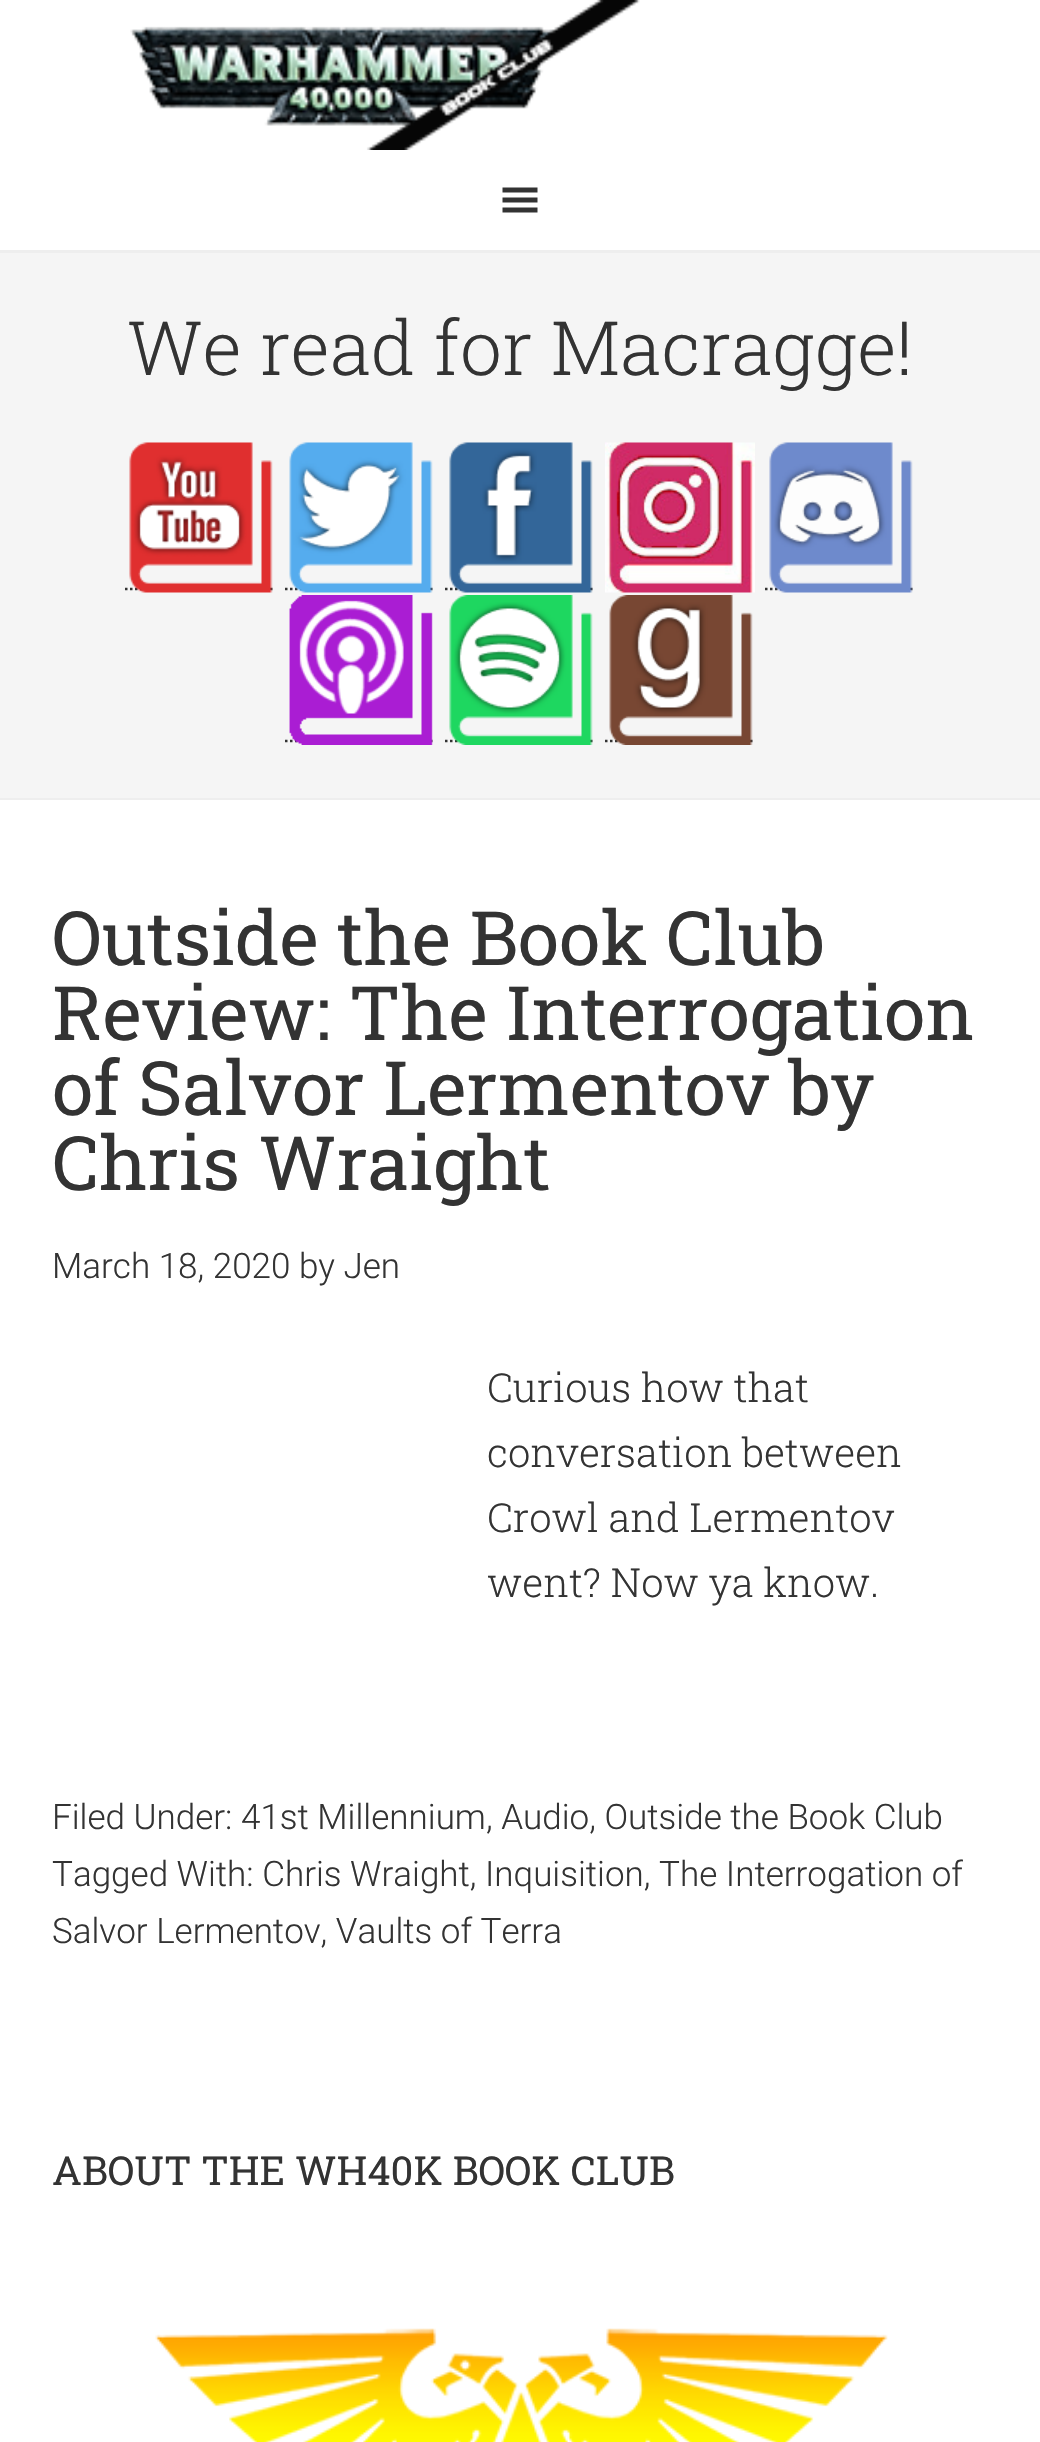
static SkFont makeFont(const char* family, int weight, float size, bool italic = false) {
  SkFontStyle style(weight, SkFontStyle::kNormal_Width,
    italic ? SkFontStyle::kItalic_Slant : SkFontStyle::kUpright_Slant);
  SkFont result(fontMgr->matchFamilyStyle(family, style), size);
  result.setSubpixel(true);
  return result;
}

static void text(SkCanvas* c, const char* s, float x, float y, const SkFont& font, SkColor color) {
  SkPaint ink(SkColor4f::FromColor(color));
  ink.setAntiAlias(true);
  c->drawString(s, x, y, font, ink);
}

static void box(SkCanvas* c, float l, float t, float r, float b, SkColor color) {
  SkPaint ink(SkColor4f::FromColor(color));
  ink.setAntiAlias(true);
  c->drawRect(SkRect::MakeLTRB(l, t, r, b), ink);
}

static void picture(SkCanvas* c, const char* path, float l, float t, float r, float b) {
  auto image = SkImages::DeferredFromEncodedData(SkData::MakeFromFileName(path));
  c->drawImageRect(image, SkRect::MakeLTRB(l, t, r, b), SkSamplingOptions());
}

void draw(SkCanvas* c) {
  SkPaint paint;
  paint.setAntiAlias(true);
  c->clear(0xffffffff);
  box(c, 0, 250, 1040, 253, 0xffeeeeee);
  picture(c, "img_01.png", 130, 0, 640, 150);
  paint.setColor(0xff333333);
  c->drawPath(SkPathBuilder().moveTo(502.5f, 212.5f).lineTo(537.5f, 212.5f).lineTo(537.5f, 207.5f).lineTo(502.5f, 207.5f).close().moveTo(502.5f, 187.5f).lineTo(502.5f, 192.5f).lineTo(537.5f, 192.5f).lineTo(537.5f, 187.5f).close().moveTo(502.5f, 202.5f).lineTo(537.5f, 202.5f).lineTo(537.5f, 197.5f).lineTo(502.5f, 197.5f).close().detach(), paint);
  box(c, 0, 253, 1040, 798, 0xfff5f5f5);
  box(c, 0, 798, 1040, 800, 0xffeeeeee);
  SkFont face1 = makeFont("Roboto Slab", 300, 75);
  text(c, "We read for Macragge!", 127, 375, face1, 0xff333333);
  paint.setStyle(SkPaint::kStroke_Style);
  paint.setStrokeWidth(2.5f);
  paint.setPathEffect(SkDashPathEffect::Make({{2.5f, 2.5f}}, 0));
  c->drawPath(SkPathBuilder().moveTo(125, 589).lineTo(275, 589).detach(), paint);
  paint.setPathEffect(nullptr);
  picture(c, "img_02.png", 129, 442, 273, 593);
  paint.setPathEffect(SkDashPathEffect::Make({{2.5f, 2.5f}}, 0));
  c->drawPath(SkPathBuilder().moveTo(285, 589).lineTo(435, 589).detach(), paint);
  paint.setPathEffect(nullptr);
  picture(c, "img_03.png", 289, 442, 433, 593);
  paint.setPathEffect(SkDashPathEffect::Make({{2.5f, 2.5f}}, 0));
  c->drawPath(SkPathBuilder().moveTo(445, 589).lineTo(595, 589).detach(), paint);
  paint.setPathEffect(nullptr);
  picture(c, "img_04.png", 449, 442, 593, 593);
  picture(c, "img_05.png", 605, 442, 755, 593);
  paint.setPathEffect(SkDashPathEffect::Make({{2.5f, 2.5f}}, 0));
  c->drawPath(SkPathBuilder().moveTo(765, 589).lineTo(915, 589).detach(), paint);
  paint.setPathEffect(nullptr);
  picture(c, "img_06.png", 769, 442, 913, 593);
  paint.setPathEffect(SkDashPathEffect::Make({{2.5f, 2.5f}}, 0));
  c->drawPath(SkPathBuilder().moveTo(285, 741).lineTo(435, 741).detach(), paint);
  paint.setPathEffect(nullptr);
  picture(c, "img_07.png", 289, 595, 433, 745);
  paint.setPathEffect(SkDashPathEffect::Make({{2.5f, 2.5f}}, 0));
  c->drawPath(SkPathBuilder().moveTo(445, 741).lineTo(595, 741).detach(), paint);
  paint.setPathEffect(nullptr);
  picture(c, "img_08.png", 449, 595, 593, 745);
  paint.setPathEffect(SkDashPathEffect::Make({{2.5f, 2.5f}}, 0));
  c->drawPath(SkPathBuilder().moveTo(605, 741).lineTo(755, 741).detach(), paint);
  paint.setPathEffect(nullptr);
  picture(c, "img_09.png", 609, 595, 753, 745);
  SkFont face2 = makeFont("Roboto Slab", 400, 75);
  text(c, "Outside the Book Club", 52, 965, face2, 0xff333333);
  text(c, "Review: The Interrogation", 52, 1040, face2, 0xff333333);
  text(c, "of Salvor Lermentov by", 52, 1115, face2, 0xff333333);
  text(c, "Chris Wraight", 52, 1190, face2, 0xff333333);
  SkFont face3 = makeFont("Roboto", 300, 35);
  text(c, "March 18, 2020 by Jen", 52, 1278, face3, 0xff333333);
  SkFont face4 = makeFont("Roboto Slab", 300, 40);
  text(c, "Curious how that", 487, 1402, face4, 0xff333333);
  text(c, "conversation between", 487, 1467, face4, 0xff333333);
  text(c, "Crowl and Lermentov", 487, 1532, face4, 0xff333333);
  text(c, "went? Now ya know.", 487, 1597, face4, 0xff333333);
  text(c, "Filed Under: 41st Millennium, Audio, Outside the Book Club", 52, 1829, face3, 0xff333333);
  text(c, "Tagged With: Chris Wraight, Inquisition, The Interrogation of", 52, 1886, face3, 0xff333333);
  text(c, "Salvor Lermentov, Vaults of Terra", 52, 1943, face3, 0xff333333);
  SkFont face5 = makeFont("Roboto Slab", 400, 40);
  text(c, "ABOUT THE WH40K BOOK CLUB", 52, 2185, face5, 0xff333333);
  picture(c, "img_10.png", 155, 2328, 888, 2442);
}
